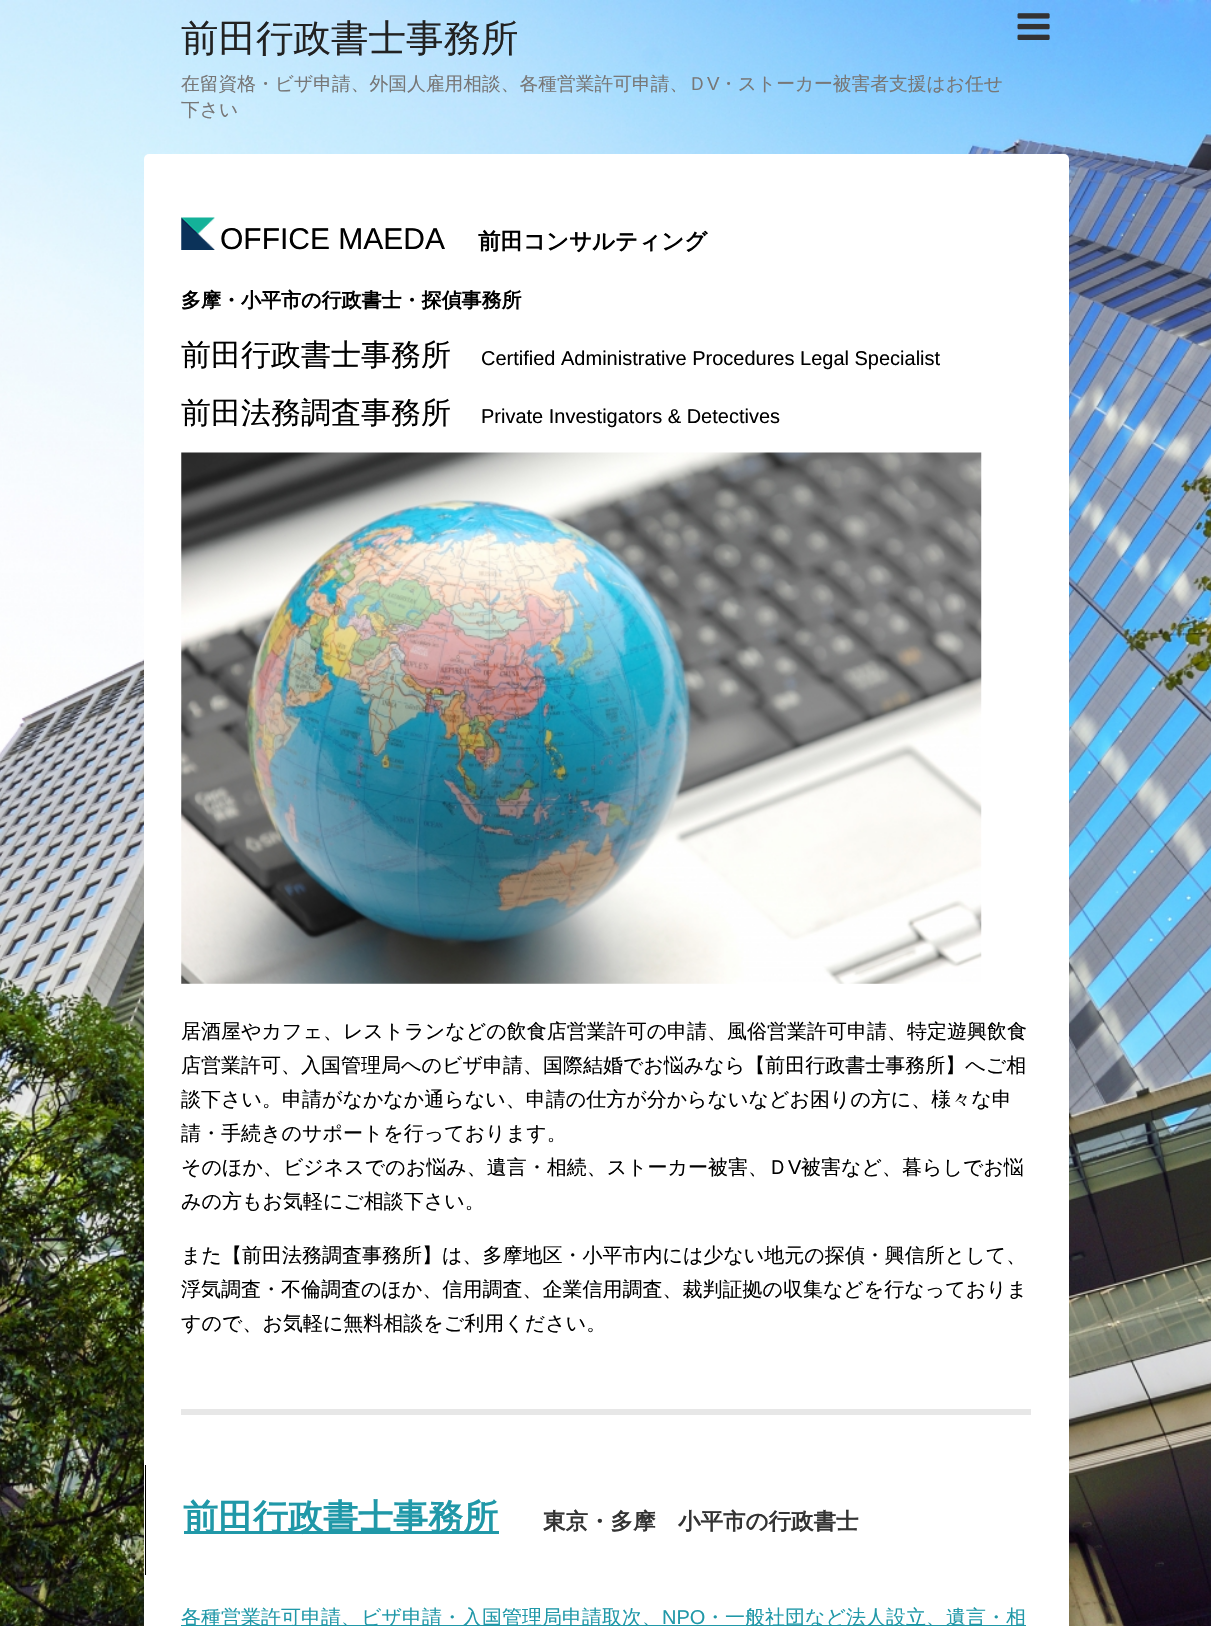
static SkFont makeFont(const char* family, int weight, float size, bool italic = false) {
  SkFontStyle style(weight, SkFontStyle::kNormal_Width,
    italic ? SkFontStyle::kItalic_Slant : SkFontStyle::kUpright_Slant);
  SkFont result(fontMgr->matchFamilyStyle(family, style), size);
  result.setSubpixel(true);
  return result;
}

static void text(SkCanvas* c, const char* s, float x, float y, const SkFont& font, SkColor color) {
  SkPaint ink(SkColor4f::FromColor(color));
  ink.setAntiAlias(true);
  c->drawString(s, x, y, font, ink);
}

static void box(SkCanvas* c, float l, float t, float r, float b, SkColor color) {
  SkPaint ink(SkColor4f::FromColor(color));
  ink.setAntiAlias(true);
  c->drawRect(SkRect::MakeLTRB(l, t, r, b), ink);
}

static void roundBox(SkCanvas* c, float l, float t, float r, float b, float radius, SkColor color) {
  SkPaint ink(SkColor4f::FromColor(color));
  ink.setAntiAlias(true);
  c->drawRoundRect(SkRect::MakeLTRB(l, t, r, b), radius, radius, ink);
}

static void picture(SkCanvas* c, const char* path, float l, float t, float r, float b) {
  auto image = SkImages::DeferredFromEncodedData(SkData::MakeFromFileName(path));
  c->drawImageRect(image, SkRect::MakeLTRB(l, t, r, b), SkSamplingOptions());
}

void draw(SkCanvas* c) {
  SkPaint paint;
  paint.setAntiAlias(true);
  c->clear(0xffffffff);
  picture(c, "img_01.png", 0, 0, 1211, 1626);
  SkFont face1 = makeFont("WenQuanYi Zen Hei", 500, 37.5f);
  text(c, "前田行政書士事務所", 181, 51, face1, 0xff222222);
  SkFont face2 = makeFont("WenQuanYi Zen Hei", 500, 18.75f);
  text(c, "在留資格・ビザ申請、外国人雇用相談、各種営業許可申請、Ｄ", 181, 90, face2, 0xff777777);
  SkFont face3 = makeFont("Liberation Sans", 400, 18.75f);
  text(c, "V", 707, 90, face3, 0xff777777);
  text(c, "・ストーカー被害者支援はお任せ", 719, 90, face2, 0xff777777);
  text(c, "下さい", 181, 116, face2, 0xff777777);
  picture(c, "img_02.png", 1017, 13, 1050, 40);
  roundBox(c, 144, 154, 1069, 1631, 5, 0xffffffff);
  picture(c, "img_03.png", 181, 217, 215, 250);
  SkFont face4 = makeFont("Liberation Sans", 400, 30);
  text(c, "OFFICE MAEDA", 220, 249, face4, 0xff000000);
  SkFont face5 = makeFont("WenQuanYi Zen Hei", 700, 22.5f);
  text(c, "前田コンサルティング", 478, 249, face5, 0xff000000);
  SkFont face6 = makeFont("WenQuanYi Zen Hei", 700, 20);
  text(c, "多摩・小平市の行政書士・探偵事務所", 181, 307, face6, 0xff000000);
  SkFont face7 = makeFont("WenQuanYi Zen Hei", 500, 30);
  text(c, "前田行政書士事務所", 181, 365, face7, 0xff000000);
  SkFont face8 = makeFont("Liberation Sans", 400, 20);
  text(c, "Certified Administrative Procedures Legal Specialist", 481, 365, face8, 0xff000000);
  text(c, "前田法務調査事務所", 181, 423, face7, 0xff000000);
  text(c, "Private Investigators & Detectives", 481, 423, face8, 0xff000000);
  picture(c, "img_04.png", 181, 452, 982, 984);
  SkFont face9 = makeFont("WenQuanYi Zen Hei", 500, 20);
  text(c, "居酒屋やカフェ、レストランなどの飲食店営業許可の申請、風俗営業許可申請、特定遊興飲食", 181, 1038, face9, 0xff000000);
  text(c, "店営業許可、入国管理局へのビザ申請、国際結婚でお悩みなら【前田行政書士事務所】へご相", 181, 1072, face9, 0xff000000);
  text(c, "談下さい。申請がなかなか通らない、申請の仕方が分からないなどお困りの方に、様々な申", 181, 1106, face9, 0xff000000);
  text(c, "請・手続きのサポートを行っております。", 181, 1140, face9, 0xff000000);
  text(c, "そのほか、ビジネスでのお悩み、遺言・相続、ストーカー被害、Ｄ", 181, 1174, face9, 0xff000000);
  text(c, "V", 788, 1174, face8, 0xff000000);
  text(c, "被害など、暮らしでお悩", 801, 1174, face9, 0xff000000);
  text(c, "みの方もお気軽にご相談下さい。", 181, 1208, face9, 0xff000000);
  text(c, "また【前田法務調査事務所】は、多摩地区・小平市内には少ない地元の探偵・興信所として、", 181, 1262, face9, 0xff000000);
  text(c, "浮気調査・不倫調査のほか、信用調査、企業信用調査、裁判証拠の収集などを行なっておりま", 181, 1296, face9, 0xff000000);
  text(c, "すので、お気軽に無料相談をご利用ください。", 181, 1330, face9, 0xff000000);
  box(c, 181, 1409, 1031, 1415, 0xffe7e7e7);
  box(c, 145, 1465, 146, 1575, 0xff000000);
  box(c, 184, 1531, 499, 1534, 0xff2098a8);
  SkFont face10 = makeFont("WenQuanYi Zen Hei", 700, 35);
  text(c, "前田行政書士事務所", 183, 1529, face10, 0xff2098a8);
  text(c, "東京・多摩　小平市の行政書士", 543, 1529, face5, 0xff333333);
  box(c, 181, 1625, 1026, 1626, 0xff2098a8);
  text(c, "各種営業許可申請、ビザ申請・入国管理局申請取次、", 181, 1624, face9, 0xff2098a8);
  text(c, "NPO", 662, 1624, face8, 0xff2098a8);
  text(c, "・一般社団など法人設立、遺言・相", 705, 1624, face9, 0xff2098a8);
}
